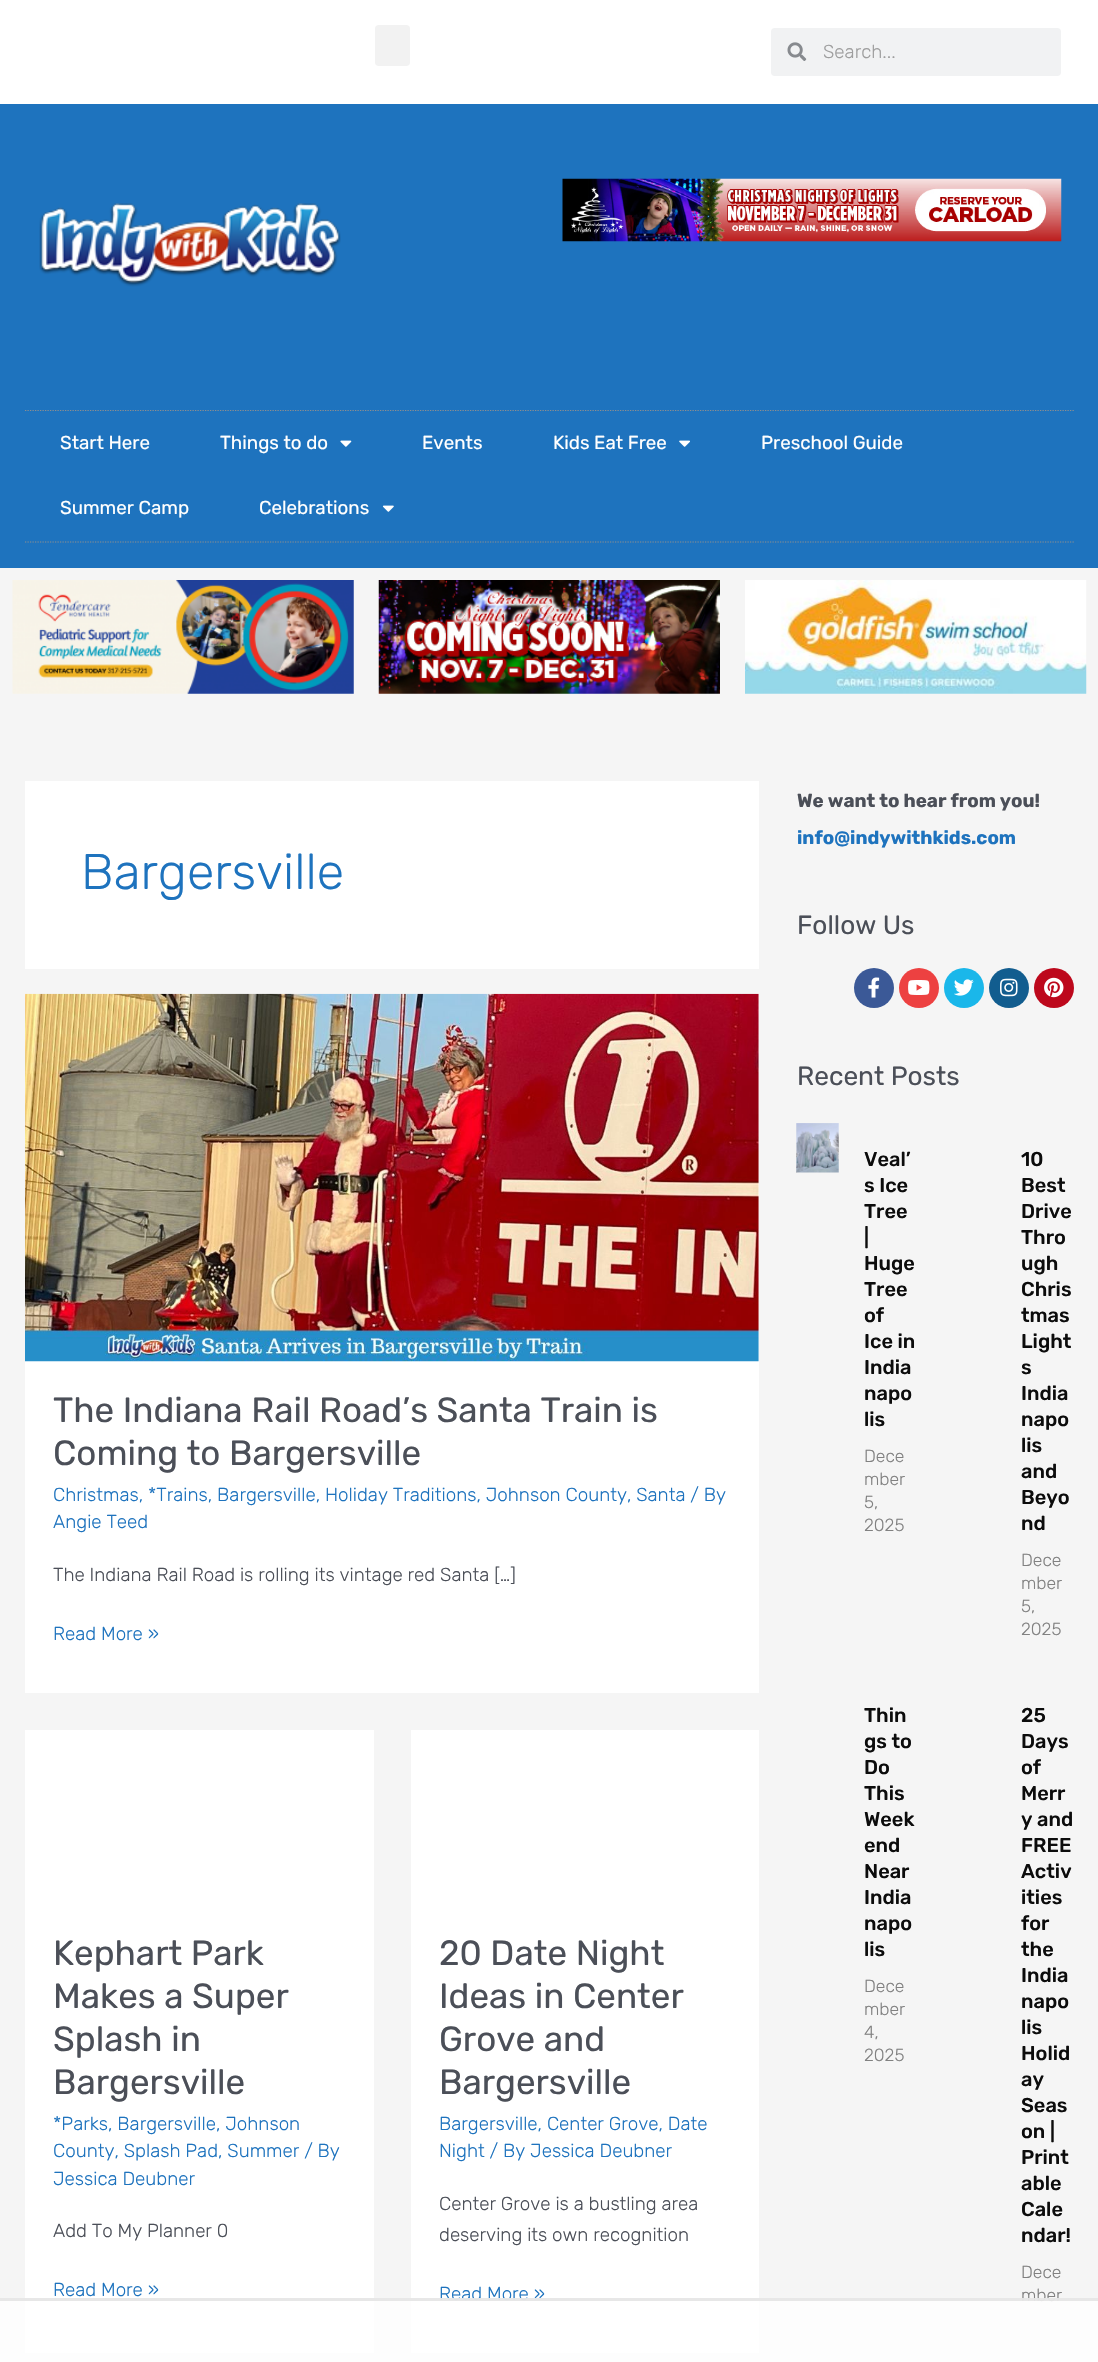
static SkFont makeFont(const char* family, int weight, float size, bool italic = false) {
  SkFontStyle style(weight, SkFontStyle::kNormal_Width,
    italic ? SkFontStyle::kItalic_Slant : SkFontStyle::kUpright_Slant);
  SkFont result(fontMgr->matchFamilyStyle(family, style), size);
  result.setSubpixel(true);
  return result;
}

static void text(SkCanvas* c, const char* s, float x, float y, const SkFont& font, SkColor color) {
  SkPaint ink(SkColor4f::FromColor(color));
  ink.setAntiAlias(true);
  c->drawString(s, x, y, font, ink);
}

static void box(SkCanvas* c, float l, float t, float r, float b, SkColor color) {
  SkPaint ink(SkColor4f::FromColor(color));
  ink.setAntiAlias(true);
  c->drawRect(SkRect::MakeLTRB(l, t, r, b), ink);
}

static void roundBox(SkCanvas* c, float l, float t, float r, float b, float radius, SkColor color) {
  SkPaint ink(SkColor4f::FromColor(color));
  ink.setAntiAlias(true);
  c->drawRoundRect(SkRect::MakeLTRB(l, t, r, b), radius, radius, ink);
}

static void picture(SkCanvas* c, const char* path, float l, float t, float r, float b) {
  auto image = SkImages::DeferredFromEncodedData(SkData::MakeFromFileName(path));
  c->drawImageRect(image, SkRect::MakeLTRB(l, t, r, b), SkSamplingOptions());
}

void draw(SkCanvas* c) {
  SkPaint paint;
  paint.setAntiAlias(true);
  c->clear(0xfff5f5f5);
  box(c, 0, 0, 1098, 104, 0xffffffff);
  roundBox(c, 375, 25, 410, 66, 4, 0xfff2f2f2);
  roundBox(c, 771, 28, 1061, 76, 4, 0xfff1f2f3);
  picture(c, "img_01.png", 787, 42, 807, 61);
  SkFont face1 = makeFont("Rubik", 300, 18.75f);
  text(c, "Search...", 823, 58, face1, 0xff9e9e9e);
  box(c, 0, 104, 1098, 568, 0xff1e73be);
  picture(c, "img_02.png", 39, 203, 341, 287);
  picture(c, "img_03.png", 562, 178, 1062, 242);
  paint.setStyle(SkPaint::kStroke_Style);
  paint.setStrokeWidth(1.2f);
  paint.setColor(0xff8e8e8e);
  paint.setPathEffect(SkDashPathEffect::Make({{1.25f, 1.25f}}, 0));
  c->drawPath(SkPathBuilder().moveTo(25, 410.5f).lineTo(1074, 410.5f).detach(), paint);
  paint.setPathEffect(nullptr);
  paint.setPathEffect(SkDashPathEffect::Make({{1.25f, 1.25f}}, 0));
  c->drawPath(SkPathBuilder().moveTo(25, 542).lineTo(1074, 542).detach(), paint);
  paint.setPathEffect(nullptr);
  SkFont face2 = makeFont("Rubik", 400, 18.75f);
  text(c, "Start Here", 60, 449, face2, 0xffffffff);
  text(c, "Things to do", 220, 449, face2, 0xffffffff);
  picture(c, "img_04.png", 340, 440, 352, 447);
  text(c, "Events", 422, 449, face2, 0xffffffff);
  text(c, "Kids Eat Free", 553, 449, face2, 0xffffffff);
  picture(c, "img_05.png", 679, 440, 690, 447);
  text(c, "Preschool Guide", 761, 449, face2, 0xffffffff);
  text(c, "Summer Camp", 60, 514, face2, 0xffffffff);
  text(c, "Celebrations", 259, 514, face2, 0xffffffff);
  picture(c, "img_06.png", 382, 505, 394, 512);
  picture(c, "img_07.png", 12, 580, 354, 694);
  picture(c, "img_08.png", 378, 580, 720, 694);
  picture(c, "img_09.png", 745, 580, 1087, 694);
  box(c, 25, 781, 759, 969, 0xffffffff);
  SkFont face3 = makeFont("Rubik", 300, 50);
  text(c, "Bargersville", 81, 889, face3, 0xff1e73be);
  box(c, 25, 994, 759, 1693, 0xffffffff);
  picture(c, "img_10.png", 25, 993, 759, 1362);
  SkFont face4 = makeFont("Rubik", 400, 35);
  text(c, "The Indiana Rail Road’s Santa Train is", 53, 1422, face4, 0xff4b4f58);
  text(c, "Coming to Bargersville", 53, 1465, face4, 0xff4b4f58);
  text(c, "Christmas, *Trains, Bargersville, Holiday Traditions, Johnson County, Santa / By", 53, 1501, face1, 0xff1e73be);
  text(c, "Angie Teed", 53, 1528, face1, 0xff1e73be);
  text(c, "The Indiana Rail Road is rolling its vintage red Santa […]", 53, 1581, face1, 0xff4b4f58);
  text(c, "Read More »", 53, 1640, face1, 0xff1e73be);
  box(c, 25, 1730, 374, 2353, 0xffffffff);
  text(c, "Kephart Park", 53, 1965, face4, 0xff4b4f58);
  text(c, "Makes a Super", 53, 2008, face4, 0xff4b4f58);
  text(c, "Splash in", 53, 2051, face4, 0xff4b4f58);
  text(c, "Bargersville", 53, 2094, face4, 0xff4b4f58);
  text(c, "*Parks, Bargersville, Johnson", 53, 2130, face1, 0xff1e73be);
  text(c, "County, Splash Pad, Summer / By", 53, 2157, face1, 0xff1e73be);
  text(c, "Jessica Deubner", 53, 2185, face1, 0xff1e73be);
  text(c, "Add To My Planner 0", 53, 2237, face1, 0xff4b4f58);
  text(c, "Read More »", 53, 2296, face1, 0xff1e73be);
  box(c, 411, 1730, 759, 2353, 0xffffffff);
  text(c, "20 Date Night", 439, 1965, face4, 0xff4b4f58);
  text(c, "Ideas in Center", 439, 2008, face4, 0xff4b4f58);
  text(c, "Grove and", 439, 2051, face4, 0xff4b4f58);
  text(c, "Bargersville", 439, 2094, face4, 0xff4b4f58);
  text(c, "Bargersville, Center Grove, Date", 439, 2130, face1, 0xff1e73be);
  text(c, "Night / By Jessica Deubner", 439, 2157, face1, 0xff1e73be);
  text(c, "Center Grove is a bustling area", 439, 2210, face1, 0xff4b4f58);
  text(c, "deserving its own recognition", 439, 2241, face1, 0xff4b4f58);
  text(c, "Read More »", 439, 2300, face1, 0xff1e73be);
  SkFont face5 = makeFont("Rubik", 700, 18.75f);
  text(c, "We want to hear from you!", 797, 807, face5, 0xff4b4f58);
  text(c, "info@indywithkids.com", 797, 844, face5, 0xff1e73be);
  SkFont face6 = makeFont("Rubik", 400, 26.25f);
  text(c, "Follow Us", 797, 934, face6, 0xff4b4f58);
  paint.setStyle(SkPaint::kFill_Style);
  paint.setColor(0xff3b5997);
  c->drawCircle(874, 988, 20, paint);
  picture(c, "img_11.png", 868, 977, 880, 998);
  paint.setColor(0xffed4141);
  c->drawCircle(919, 988, 20, paint);
  picture(c, "img_12.png", 908, 980, 930, 995);
  paint.setColor(0xff1ab7ea);
  c->drawCircle(964, 988, 20, paint);
  picture(c, "img_13.png", 954, 979, 974, 996);
  paint.setColor(0xff125d8f);
  c->drawCircle(1009, 988, 20, paint);
  picture(c, "img_14.png", 1000, 978, 1018, 997);
  paint.setColor(0xffbd081c);
  c->drawCircle(1054, 988, 20, paint);
  picture(c, "img_15.png", 1044, 977, 1064, 998);
  text(c, "Recent Posts", 797, 1085, face6, 0xff4b4f58);
  picture(c, "img_16.png", 796, 1123, 839, 1173);
  SkFont face7 = makeFont("Rubik", 500, 20);
  text(c, "Veal’", 864, 1166, face7, 0xff0c0c0c);
  text(c, "s Ice", 864, 1192, face7, 0xff0c0c0c);
  text(c, "Tree", 864, 1218, face7, 0xff0c0c0c);
  text(c, "|", 864, 1244, face7, 0xff0c0c0c);
  text(c, "Huge", 864, 1270, face7, 0xff0c0c0c);
  text(c, "Tree", 864, 1296, face7, 0xff0c0c0c);
  text(c, "of", 864, 1322, face7, 0xff0c0c0c);
  text(c, "Ice in", 864, 1348, face7, 0xff0c0c0c);
  text(c, "India", 864, 1374, face7, 0xff0c0c0c);
  text(c, "napo", 864, 1400, face7, 0xff0c0c0c);
  text(c, "lis", 864, 1426, face7, 0xff0c0c0c);
  SkFont face8 = makeFont("Rubik", 300, 17.5f);
  text(c, "Dece", 864, 1462, face8, 0xff818181);
  text(c, "mber", 864, 1485, face8, 0xff818181);
  text(c, "5,", 864, 1508, face8, 0xff818181);
  text(c, "2025", 864, 1531, face8, 0xff818181);
  text(c, "10", 1021, 1166, face7, 0xff0c0c0c);
  text(c, "Best", 1021, 1192, face7, 0xff0c0c0c);
  text(c, "Drive", 1021, 1218, face7, 0xff0c0c0c);
  text(c, "Thro", 1021, 1244, face7, 0xff0c0c0c);
  text(c, "ugh", 1021, 1270, face7, 0xff0c0c0c);
  text(c, "Chris", 1021, 1296, face7, 0xff0c0c0c);
  text(c, "tmas", 1021, 1322, face7, 0xff0c0c0c);
  text(c, "Light", 1021, 1348, face7, 0xff0c0c0c);
  text(c, "s", 1021, 1374, face7, 0xff0c0c0c);
  text(c, "India", 1021, 1400, face7, 0xff0c0c0c);
  text(c, "napo", 1021, 1426, face7, 0xff0c0c0c);
  text(c, "lis", 1021, 1452, face7, 0xff0c0c0c);
  text(c, "and", 1021, 1478, face7, 0xff0c0c0c);
  text(c, "Beyo", 1021, 1504, face7, 0xff0c0c0c);
  text(c, "nd", 1021, 1530, face7, 0xff0c0c0c);
  text(c, "Dece", 1021, 1566, face8, 0xff818181);
  text(c, "mber", 1021, 1589, face8, 0xff818181);
  text(c, "5,", 1021, 1612, face8, 0xff818181);
  text(c, "2025", 1021, 1635, face8, 0xff818181);
  text(c, "Thin", 864, 1722, face7, 0xff0c0c0c);
  text(c, "gs to", 864, 1748, face7, 0xff0c0c0c);
  text(c, "Do", 864, 1774, face7, 0xff0c0c0c);
  text(c, "This", 864, 1800, face7, 0xff0c0c0c);
  text(c, "Week", 864, 1826, face7, 0xff0c0c0c);
  text(c, "end", 864, 1852, face7, 0xff0c0c0c);
  text(c, "Near", 864, 1878, face7, 0xff0c0c0c);
  text(c, "India", 864, 1904, face7, 0xff0c0c0c);
  text(c, "napo", 864, 1930, face7, 0xff0c0c0c);
  text(c, "lis", 864, 1956, face7, 0xff0c0c0c);
  text(c, "Dece", 864, 1992, face8, 0xff818181);
  text(c, "mber", 864, 2015, face8, 0xff818181);
  text(c, "4,", 864, 2038, face8, 0xff818181);
  text(c, "2025", 864, 2061, face8, 0xff818181);
  text(c, "25", 1021, 1722, face7, 0xff0c0c0c);
  text(c, "Days", 1021, 1748, face7, 0xff0c0c0c);
  text(c, "of", 1021, 1774, face7, 0xff0c0c0c);
  text(c, "Merr", 1021, 1800, face7, 0xff0c0c0c);
  text(c, "y and", 1021, 1826, face7, 0xff0c0c0c);
  text(c, "FREE", 1021, 1852, face7, 0xff0c0c0c);
  text(c, "Activ", 1021, 1878, face7, 0xff0c0c0c);
  text(c, "ities", 1021, 1904, face7, 0xff0c0c0c);
  text(c, "for", 1021, 1930, face7, 0xff0c0c0c);
  text(c, "the", 1021, 1956, face7, 0xff0c0c0c);
  text(c, "India", 1021, 1982, face7, 0xff0c0c0c);
  text(c, "napo", 1021, 2008, face7, 0xff0c0c0c);
  text(c, "lis", 1021, 2034, face7, 0xff0c0c0c);
  text(c, "Holid", 1021, 2060, face7, 0xff0c0c0c);
  text(c, "ay", 1021, 2086, face7, 0xff0c0c0c);
  text(c, "Seas", 1021, 2112, face7, 0xff0c0c0c);
  text(c, "on |", 1021, 2138, face7, 0xff0c0c0c);
  text(c, "Print", 1021, 2164, face7, 0xff0c0c0c);
  text(c, "able", 1021, 2190, face7, 0xff0c0c0c);
  text(c, "Cale", 1021, 2216, face7, 0xff0c0c0c);
  text(c, "ndar!", 1021, 2242, face7, 0xff0c0c0c);
  text(c, "Dece", 1021, 2278, face8, 0xff818181);
  text(c, "mber", 1021, 2301, face8, 0xff818181);
  box(c, 0, 2298, 1098, 2362, 0xccffffff);
  box(c, 0, 2298, 1098, 2301, 0xcce1e1e1);
}
